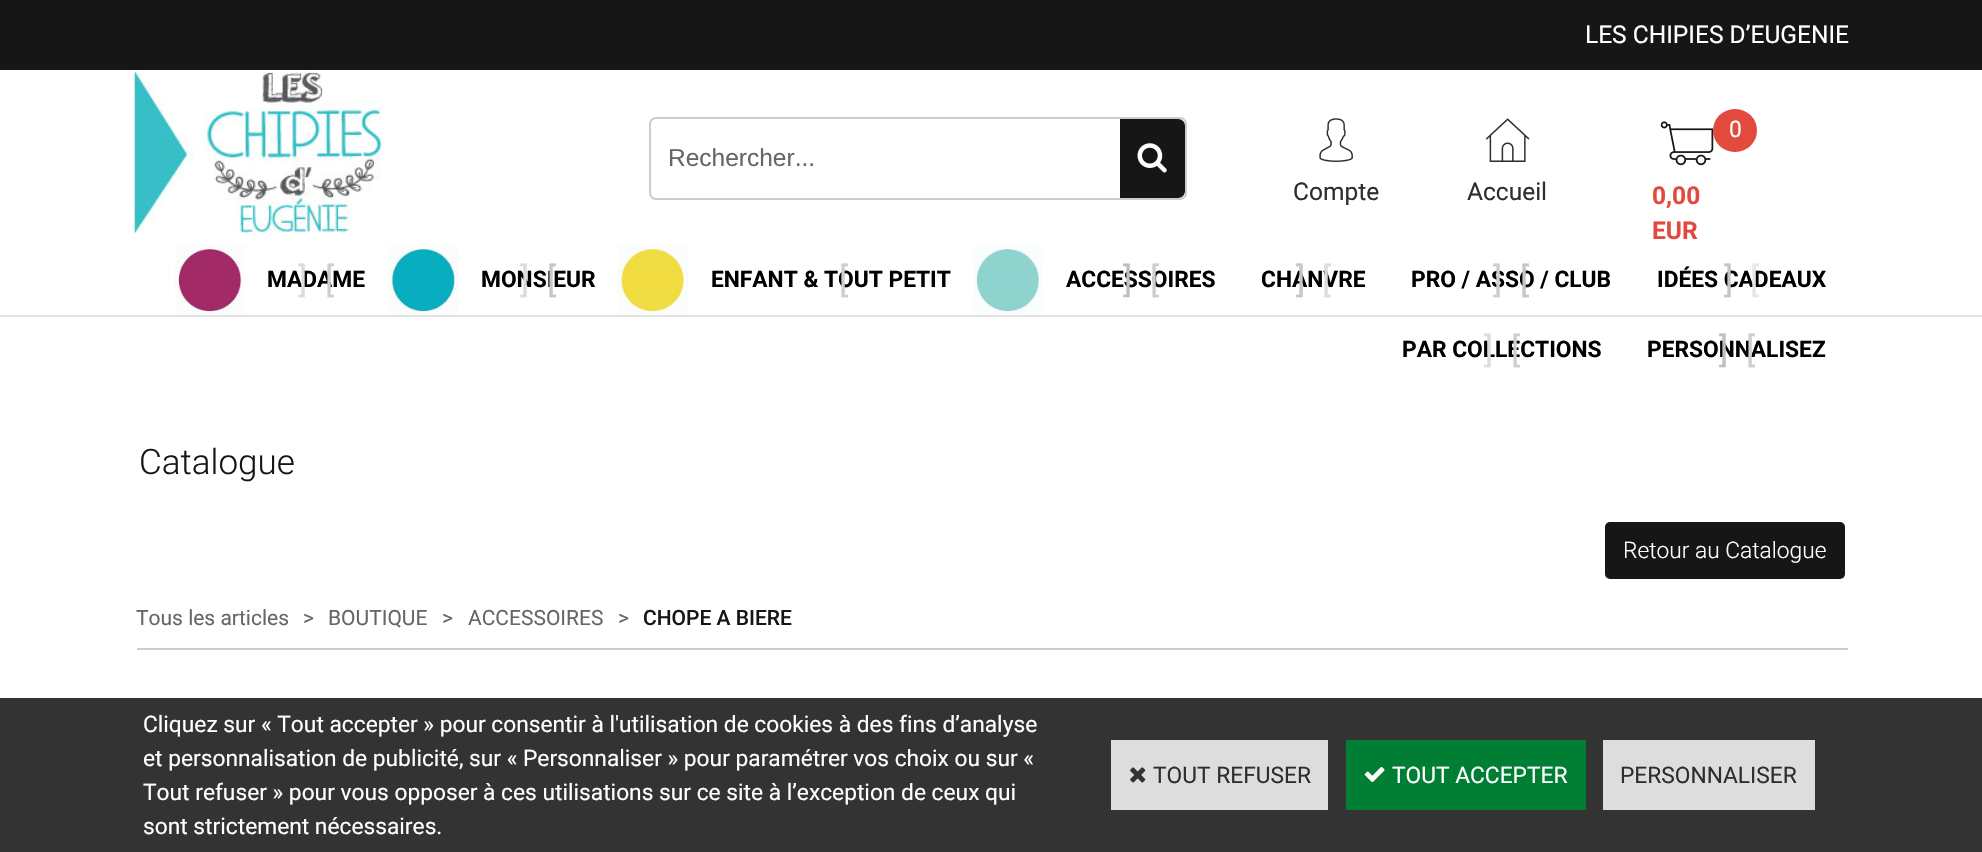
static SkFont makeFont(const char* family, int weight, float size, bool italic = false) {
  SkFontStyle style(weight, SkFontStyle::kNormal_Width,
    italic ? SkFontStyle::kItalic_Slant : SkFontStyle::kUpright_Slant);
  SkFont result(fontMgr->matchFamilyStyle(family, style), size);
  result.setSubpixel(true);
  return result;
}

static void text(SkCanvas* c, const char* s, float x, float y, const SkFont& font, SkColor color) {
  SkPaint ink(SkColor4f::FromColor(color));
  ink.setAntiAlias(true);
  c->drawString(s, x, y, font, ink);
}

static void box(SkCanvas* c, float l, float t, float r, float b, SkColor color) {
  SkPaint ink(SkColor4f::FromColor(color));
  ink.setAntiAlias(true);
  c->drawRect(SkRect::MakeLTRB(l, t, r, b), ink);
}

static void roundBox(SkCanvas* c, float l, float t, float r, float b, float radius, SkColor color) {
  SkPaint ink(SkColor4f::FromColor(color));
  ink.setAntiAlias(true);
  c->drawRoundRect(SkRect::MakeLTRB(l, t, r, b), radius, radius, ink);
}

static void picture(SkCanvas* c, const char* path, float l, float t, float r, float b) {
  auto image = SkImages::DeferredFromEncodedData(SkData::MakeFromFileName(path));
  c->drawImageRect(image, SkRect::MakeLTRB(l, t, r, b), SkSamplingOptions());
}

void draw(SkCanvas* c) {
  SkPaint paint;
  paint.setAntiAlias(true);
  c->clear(0xffffffff);
  box(c, 0, 0, 1982, 70, 0xff161616);
  box(c, 0, 315, 1982, 317, 0xffe2e2e2);
  SkFont face1 = makeFont("Roboto", 400, 24.5f);
  text(c, "LES CHIPIES D’EUGENIE", 1585, 43, face1, 0xffffffff);
  picture(c, "img_01.png", 134, 71, 382, 233);
  paint.setStyle(SkPaint::kStroke_Style);
  paint.setStrokeWidth(2);
  paint.setColor(0xffcccccc);
  c->drawRoundRect(SkRect::MakeLTRB(650, 118, 1186, 199), 6, 6, paint);
  SkFont face2 = makeFont("Liberation Sans", 400, 24.5f);
  text(c, "Rechercher...", 668, 166, face2, 0xff666666);
  paint.setStyle(SkPaint::kFill_Style);
  paint.setColor(0xff161616);
  c->drawPath(SkPathBuilder().moveTo(1120, 119).lineTo(1178, 119).cubicTo(1182, 119, 1185, 122, 1185, 126).lineTo(1185, 191).cubicTo(1185, 195, 1182, 198, 1178, 198).lineTo(1120, 198).close().detach(), paint);
  picture(c, "img_02.png", 1137, 143, 1167, 173);
  picture(c, "img_03.png", 1319, 118, 1353, 162);
  text(c, "Compte", 1293, 200, face1, 0xff2e2e2e);
  picture(c, "img_04.png", 1485, 118, 1530, 162);
  text(c, "Accueil", 1467, 200, face1, 0xff2e2e2e);
  picture(c, "img_05.png", 1660, 121, 1714, 166);
  roundBox(c, 1713, 109, 1757, 152, 21.5f, 0xffe14a3d);
  SkFont face3 = makeFont("Roboto", 400, 22.75f);
  text(c, "0", 1729, 137, face3, 0xffffffff);
  SkFont face4 = makeFont("Roboto", 700, 24.5f);
  text(c, "0,00", 1652, 204, face4, 0xffe14a3d);
  text(c, "EUR", 1652, 239, face4, 0xffe14a3d);
  picture(c, "img_06.png", 175, 245, 245, 315);
  SkFont face5 = makeFont("Roboto", 700, 22.75f);
  text(c, "MADAME", 267, 287, face5, 0xff000000);
  SkFont face6 = makeFont("Roboto", 400, 35);
  text(c, "]", 298, 292, face6, 0xffdcdcdc);
  text(c, "[", 325, 292, face6, 0xffcecece);
  picture(c, "img_07.png", 388, 245, 459, 315);
  text(c, "MONSIEUR", 481, 287, face5, 0xff000000);
  text(c, "]", 520, 292, face6, 0xffdcdcdc);
  text(c, "[", 547, 292, face6, 0xffc6c6c6);
  picture(c, "img_08.png", 617, 245, 688, 315);
  text(c, "ENFANT & TOUT PETIT", 711, 287, face5, 0xff000000);
  text(c, "[", 839, 292, face6, 0xffcecece);
  picture(c, "img_09.png", 973, 245, 1043, 315);
  text(c, "ACCESSOIRES", 1066, 287, face5, 0xff000000);
  text(c, "]", 1123, 292, face6, 0xffbfbfbf);
  text(c, "[", 1150, 292, face6, 0xffcecece);
  text(c, "CHANVRE", 1261, 287, face5, 0xff000000);
  text(c, "]", 1296, 292, face6, 0xffc6c6c6);
  text(c, "[", 1322, 292, face6, 0xffdcdcdc);
  text(c, "PRO / ASSO / CLUB", 1411, 287, face5, 0xff000000);
  text(c, "]", 1493, 292, face6, 0xffcecece);
  text(c, "[", 1520, 292, face6, 0xffc6c6c6);
  text(c, "IDÉES CADEAUX", 1657, 287, face5, 0xff000000);
  text(c, "]", 1724, 292, face6, 0xffc6c6c6);
  text(c, "[", 1750, 292, face6, 0xffe7e7e7);
  text(c, "PAR COLLECTIONS", 1402, 357, face5, 0xff000000);
  text(c, "]", 1484, 362, face6, 0xffdcdcdc);
  text(c, "[", 1511, 362, face6, 0xffcecece);
  text(c, "PERSONNALISEZ", 1647, 357, face5, 0xff000000);
  text(c, "]", 1719, 362, face6, 0xffbfbfbf);
  text(c, "[", 1746, 362, face6, 0xffcecece);
  SkFont face7 = makeFont("Roboto", 300, 35);
  text(c, "Catalogue", 139, 474, face7, 0xff161616);
  roundBox(c, 1605, 522, 1845, 579, 5, 0xff161616);
  SkFont face8 = makeFont("Roboto", 300, 22.75f);
  text(c, "Retour au Catalogue", 1623, 558, face8, 0xffffffff);
  SkFont face9 = makeFont("Roboto", 400, 21);
  text(c, "Tous les articles", 136, 625, face9, 0xff666666);
  text(c, ">", 303, 625, face9, 0xff666666);
  text(c, "BOUTIQUE", 328, 625, face9, 0xff666666);
  text(c, ">", 442, 625, face9, 0xff666666);
  text(c, "ACCESSOIRES", 468, 625, face9, 0xff666666);
  text(c, ">", 618, 625, face9, 0xff666666);
  SkFont face10 = makeFont("Roboto", 500, 21);
  text(c, "CHOPE A BIERE", 643, 625, face10, 0xff161616);
  box(c, 137, 648, 1848, 650, 0xffcccccc);
  box(c, 0, 698, 1982, 852, 0xff333333);
  text(c, "Cliquez sur « Tout accepter » pour consentir à l'utilisation de cookies à des fins d’analyse", 143, 732, face3, 0xffffffff);
  text(c, "et personnalisation de publicité, sur « Personnaliser » pour paramétrer vos choix ou sur «", 143, 766, face3, 0xffffffff);
  text(c, "Tout refuser » pour vous opposer à ces utilisations sur ce site à l’exception de ceux qui", 143, 800, face3, 0xffffffff);
  text(c, "sont strictement nécessaires.", 143, 834, face3, 0xffffffff);
  box(c, 1111, 740, 1328, 810, 0xffdddddd);
  picture(c, "img_10.png", 1130, 767, 1146, 783);
  text(c, "TOUT REFUSER", 1153, 783, face3, 0xff2e2e2e);
  box(c, 1346, 740, 1586, 810, 0xff007e33);
  picture(c, "img_11.png", 1364, 767, 1385, 783);
  text(c, "TOUT ACCEPTER", 1392, 783, face3, 0xffffffff);
  box(c, 1603, 740, 1815, 810, 0xffdddddd);
  text(c, "PERSONNALISER", 1620, 783, face3, 0xff2e2e2e);
}
